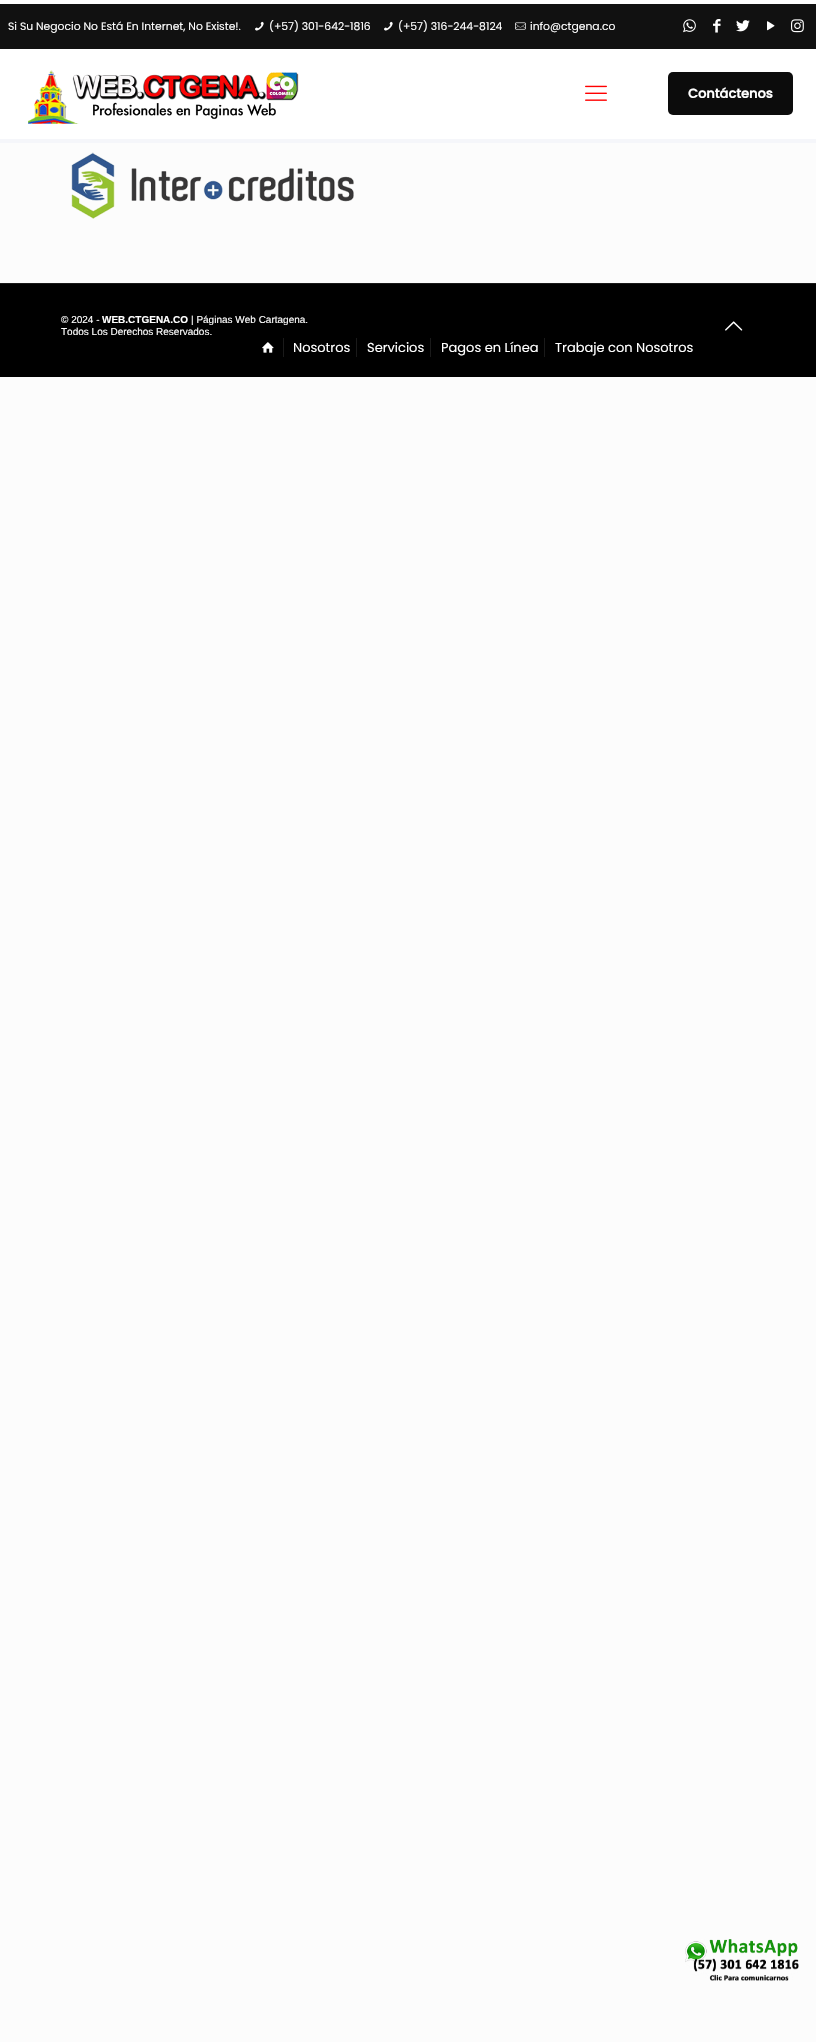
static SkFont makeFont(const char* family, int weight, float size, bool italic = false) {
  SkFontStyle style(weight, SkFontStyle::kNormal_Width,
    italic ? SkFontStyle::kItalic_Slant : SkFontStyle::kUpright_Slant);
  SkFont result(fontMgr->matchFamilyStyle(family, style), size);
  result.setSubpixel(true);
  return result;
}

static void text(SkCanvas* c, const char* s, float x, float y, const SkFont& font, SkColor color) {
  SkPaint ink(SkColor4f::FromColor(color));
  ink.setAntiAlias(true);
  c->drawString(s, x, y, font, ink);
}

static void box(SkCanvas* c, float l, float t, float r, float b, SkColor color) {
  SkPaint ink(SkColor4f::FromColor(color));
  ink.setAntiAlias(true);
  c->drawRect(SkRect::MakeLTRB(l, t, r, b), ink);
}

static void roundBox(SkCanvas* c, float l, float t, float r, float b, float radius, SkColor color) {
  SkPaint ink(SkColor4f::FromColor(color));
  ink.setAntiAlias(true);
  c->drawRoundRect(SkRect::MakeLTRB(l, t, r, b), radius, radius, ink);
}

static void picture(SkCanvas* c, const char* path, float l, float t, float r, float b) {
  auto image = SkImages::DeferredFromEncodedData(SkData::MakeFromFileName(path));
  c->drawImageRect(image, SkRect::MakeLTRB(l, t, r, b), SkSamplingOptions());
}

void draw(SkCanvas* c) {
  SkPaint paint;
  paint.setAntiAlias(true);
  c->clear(0xfffcfcfc);
  box(c, 0, 0, 816, 4, 0xffffffff);
  box(c, 0, 4, 816, 49, 0xff111111);
  SkFont face1 = makeFont("Poppins", 400, 10.8f);
  text(c, "Si Su Negocio No Está En Internet, No Existe!.", 8, 30, face1, 0xffffffff);
  picture(c, "img_01.png", 255, 21, 264, 31);
  text(c, "(+57) 301-642-1816", 269, 30, face1, 0xffffffff);
  picture(c, "img_01.png", 384, 21, 393, 31);
  text(c, "(+57) 316-244-8124", 398, 30, face1, 0xffffffff);
  picture(c, "img_02.png", 515, 22, 526, 30);
  text(c, "info@ctgena.co", 530, 30, face1, 0xffffffff);
  picture(c, "img_03.png", 683, 19, 696, 33);
  picture(c, "img_04.png", 713, 19, 721, 33);
  picture(c, "img_05.png", 736, 20, 750, 32);
  picture(c, "img_06.png", 767, 21, 775, 31);
  picture(c, "img_07.png", 791, 19, 804, 33);
  box(c, 0, 49, 816, 139, 0xffffffff);
  box(c, 0, 139, 816, 143, 0xfff5f6fa);
  picture(c, "img_08.png", 28, 70, 299, 124);
  picture(c, "img_09.png", 585, 85, 607, 101);
  roundBox(c, 668, 72, 793, 115, 5, 0xff0c0c0c);
  SkFont face2 = makeFont("Poppins", 700, 13);
  text(c, "Contáctenos", 688, 98, face2, 0xffffffff);
  picture(c, "img_10.png", 71, 152, 354, 219);
  box(c, 0, 284, 816, 377, 0xff000000);
  box(c, 0, 283, 816, 284, 0xff1a1a1a);
  SkFont face3 = makeFont("Liberation Sans", 400, 10);
  text(c, "© 2024 -", 61, 323, face3, 0xffffffff);
  SkFont face4 = makeFont("Liberation Sans", 700, 10);
  text(c, "WEB.CTGENA.CO", 102, 323, face4, 0xffffffff);
  text(c, "| Páginas Web Cartagena.", 191, 323, face3, 0xffffffff);
  text(c, "Todos Los Derechos Reservados.", 61, 335, face3, 0xffffffff);
  picture(c, "img_11.png", 725, 321, 743, 331);
  box(c, 283, 338, 284, 357, 0xff1a1a1a);
  picture(c, "img_12.png", 262, 342, 274, 353);
  box(c, 356, 338, 357, 357, 0xff1a1a1a);
  SkFont face5 = makeFont("Poppins", 400, 13);
  text(c, "Nosotros", 293, 352, face5, 0xffffffff);
  box(c, 430, 338, 431, 357, 0xff1a1a1a);
  text(c, "Servicios", 367, 352, face5, 0xffffffff);
  box(c, 544, 338, 545, 357, 0xff1a1a1a);
  text(c, "Pagos en Línea", 441, 352, face5, 0xffffffff);
  text(c, "Trabaje con Nosotros", 555, 352, face5, 0xffffffff);
  picture(c, "img_13.png", 685, 1939, 799, 1981);
}
